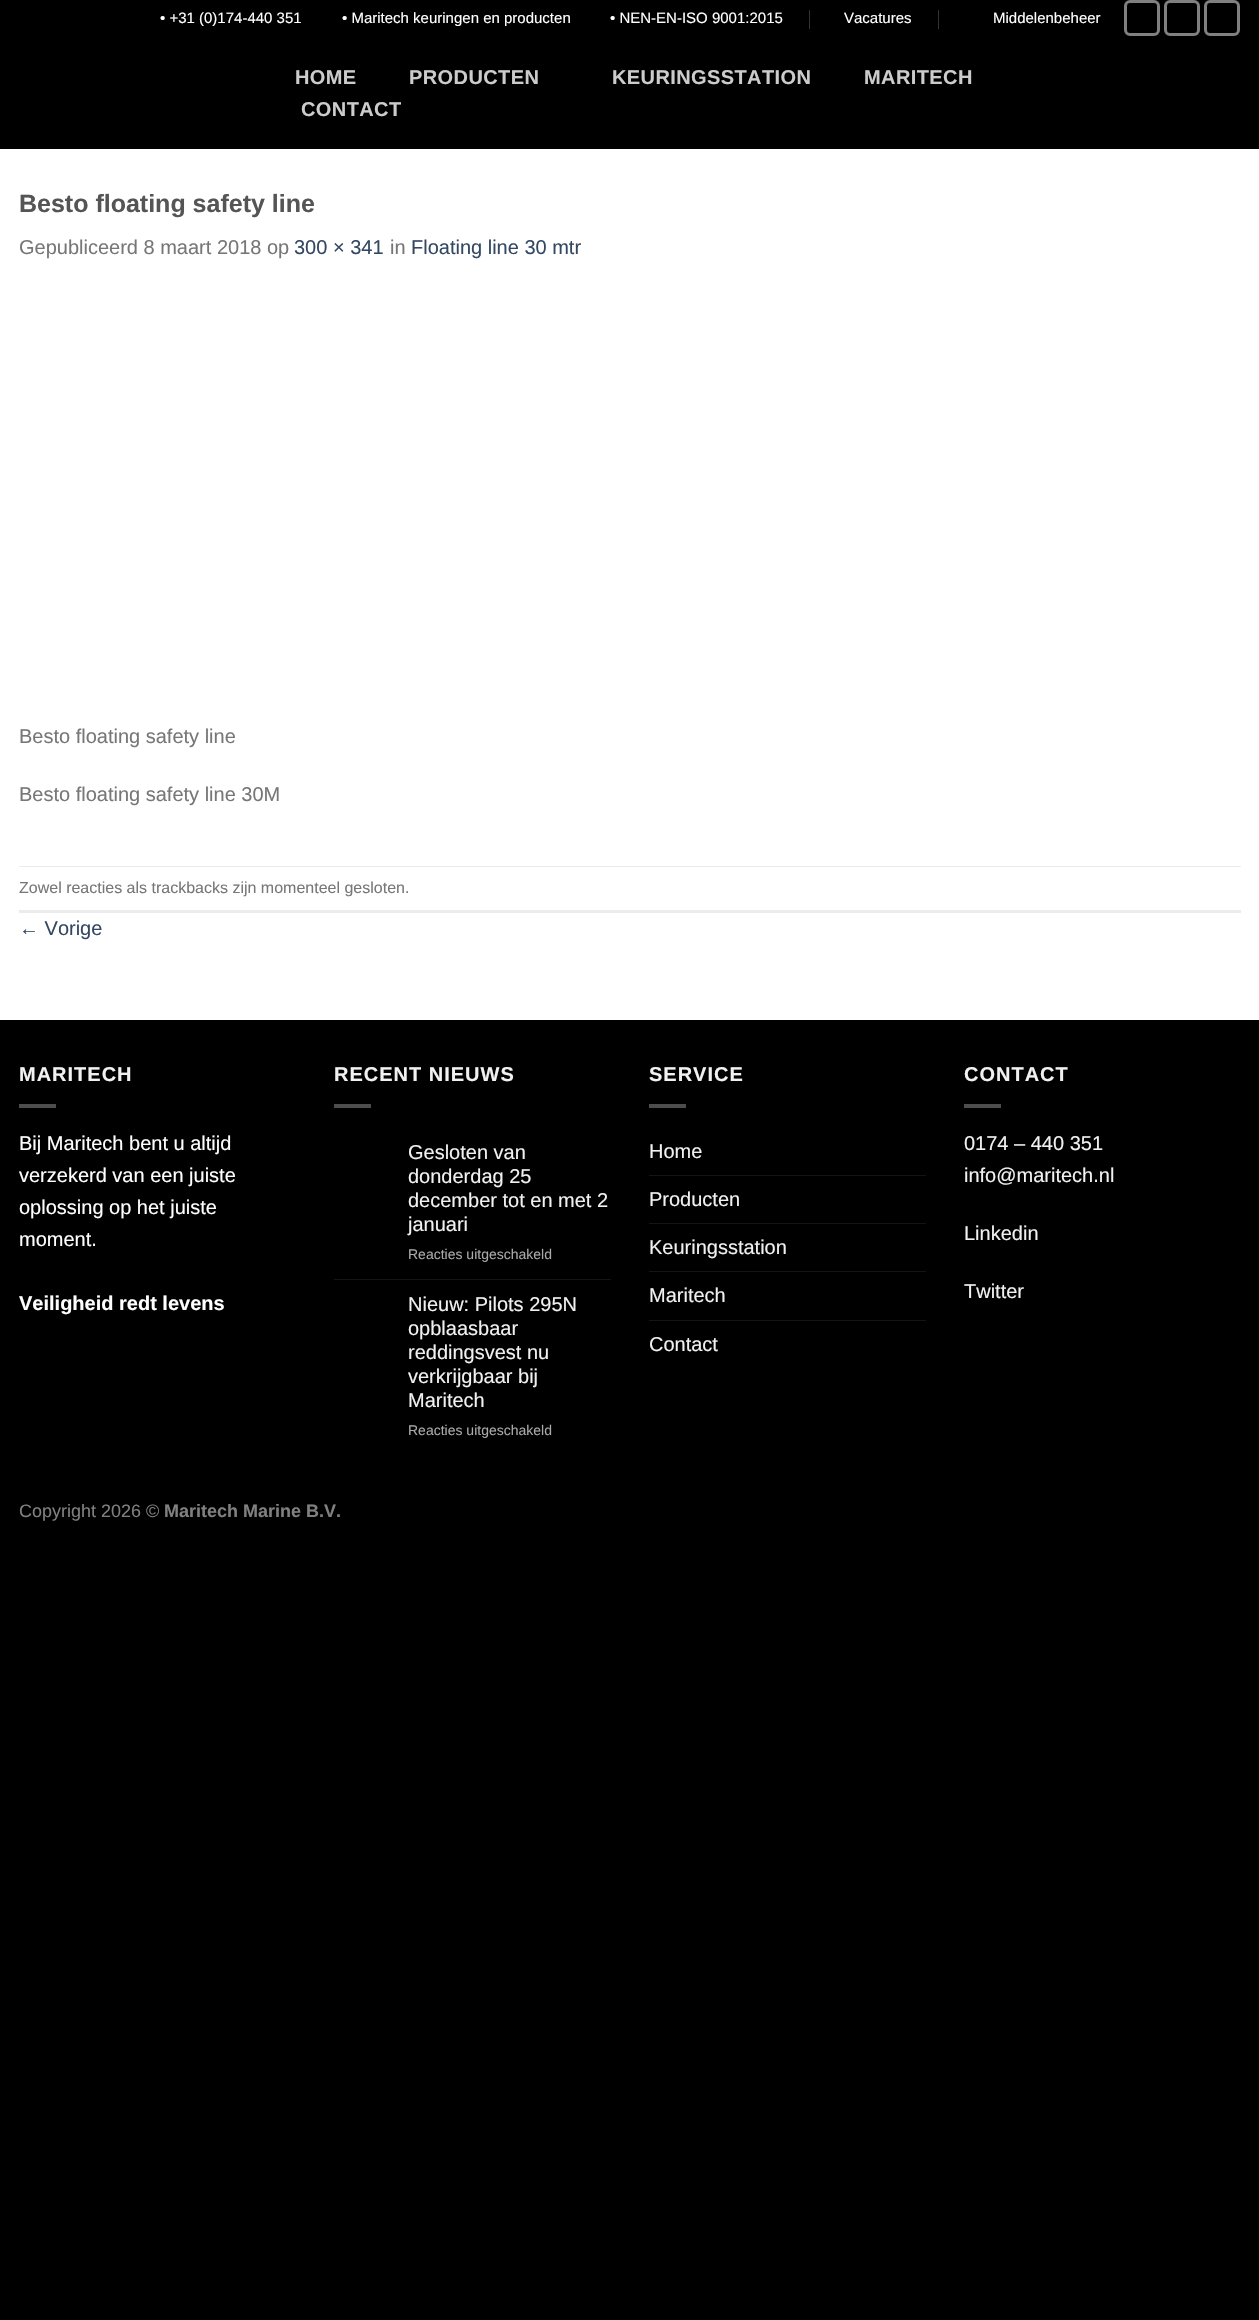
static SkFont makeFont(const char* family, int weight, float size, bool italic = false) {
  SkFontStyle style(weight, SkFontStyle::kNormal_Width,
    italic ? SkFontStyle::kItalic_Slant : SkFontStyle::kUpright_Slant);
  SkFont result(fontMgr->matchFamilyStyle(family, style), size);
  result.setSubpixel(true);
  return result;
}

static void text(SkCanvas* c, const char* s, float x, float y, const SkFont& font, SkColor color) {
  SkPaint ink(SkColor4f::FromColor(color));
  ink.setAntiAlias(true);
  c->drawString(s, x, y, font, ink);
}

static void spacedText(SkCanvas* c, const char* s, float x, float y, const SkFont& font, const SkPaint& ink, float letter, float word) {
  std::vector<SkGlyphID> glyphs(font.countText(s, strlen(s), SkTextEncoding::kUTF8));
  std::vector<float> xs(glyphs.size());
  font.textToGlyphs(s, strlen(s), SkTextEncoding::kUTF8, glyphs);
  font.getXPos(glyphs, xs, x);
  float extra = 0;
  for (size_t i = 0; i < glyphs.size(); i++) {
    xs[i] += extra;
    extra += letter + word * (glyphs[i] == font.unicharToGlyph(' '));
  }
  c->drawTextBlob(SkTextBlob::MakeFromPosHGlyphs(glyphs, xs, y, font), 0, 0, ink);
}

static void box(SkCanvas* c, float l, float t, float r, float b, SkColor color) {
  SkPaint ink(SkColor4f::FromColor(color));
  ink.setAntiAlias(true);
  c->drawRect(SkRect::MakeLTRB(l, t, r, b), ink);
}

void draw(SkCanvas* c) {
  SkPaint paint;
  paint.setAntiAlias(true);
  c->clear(0xff000000);
  box(c, 0, 149, 1259, 1020, 0xffffffff);
  SkFont face1 = makeFont("Liberation Sans", 400, 15);
  text(c, "• +31 (0)174-440 351", 160, 23, face1, 0xffffffff);
  text(c, "• Maritech keuringen en producten", 342, 23, face1, 0xffffffff);
  text(c, "• NEN-EN-ISO 9001:2015", 610, 23, face1, 0xffffffff);
  box(c, 809, 10, 810, 29, 0xff333333);
  text(c, "Vacatures", 844, 23, face1, 0xffffffff);
  box(c, 938, 10, 939, 29, 0xff333333);
  text(c, "Middelenbeheer", 993, 23, face1, 0xffffffff);
  paint.setStyle(SkPaint::kStroke_Style);
  paint.setStrokeWidth(3);
  paint.setColor(0xff808080);
  c->drawRoundRect(SkRect::MakeLTRB(1125.5f, 1.5f, 1158.5f, 34.5f), 4.5f, 4.5f, paint);
  c->drawRoundRect(SkRect::MakeLTRB(1165.5f, 1.5f, 1198.5f, 34.5f), 4.5f, 4.5f, paint);
  c->drawRoundRect(SkRect::MakeLTRB(1205.5f, 1.5f, 1238.5f, 34.5f), 4.5f, 4.5f, paint);
  SkFont face2 = makeFont("Liberation Sans", 700, 20);
  paint.setStyle(SkPaint::kFill_Style);
  paint.setColor(0xffcccccc);
  spacedText(c, "HOME", 295, 84, face2, paint, 0.4f, 0);
  spacedText(c, "PRODUCTEN", 409, 84, face2, paint, 0.4f, 0);
  spacedText(c, "KEURINGSSTATION", 612, 84, face2, paint, 0.4f, 0);
  spacedText(c, "MARITECH", 864, 84, face2, paint, 0.4f, 0);
  spacedText(c, "CONTACT", 301, 116, face2, paint, 0.4f, 0);
  SkFont face3 = makeFont("Liberation Sans", 700, 25);
  text(c, "Besto floating safety line", 19, 212, face3, 0xff555555);
  SkFont face4 = makeFont("Liberation Sans", 400, 20);
  text(c, "Gepubliceerd 8 maart 2018 op", 19, 254, face4, 0xff777777);
  text(c, "300 × 341", 294, 254, face4, 0xff334862);
  text(c, "in", 390, 254, face4, 0xff777777);
  text(c, "Floating line 30 mtr", 411, 254, face4, 0xff334862);
  text(c, "Besto floating safety line", 19, 743, face4, 0xff777777);
  text(c, "Besto floating safety line 30M", 19, 801, face4, 0xff777777);
  box(c, 19, 866, 1241, 867, 0xffececec);
  box(c, 19, 910, 1241, 913, 0xffececec);
  SkFont face5 = makeFont("Liberation Sans", 400, 16);
  text(c, "Zowel reacties als trackbacks zijn momenteel gesloten.", 19, 893, face5, 0xff777777);
  text(c, "← Vorige", 19, 935, face4, 0xff334862);
  paint.setColor(0xfff1f1f1);
  spacedText(c, "MARITECH", 19, 1081, face2, paint, 1, 0);
  box(c, 19, 1104, 56, 1108, 0xff4d4d4d);
  text(c, "Bij Maritech bent u altijd", 19, 1150, face4, 0xffffffff);
  text(c, "verzekerd van een juiste", 19, 1182, face4, 0xffffffff);
  text(c, "oplossing op het juiste", 19, 1214, face4, 0xffffffff);
  text(c, "moment.", 19, 1246, face4, 0xffffffff);
  text(c, "Veiligheid redt levens", 19, 1310, face2, 0xffffffff);
  spacedText(c, "RECENT NIEUWS", 334, 1081, face2, paint, 1, 0);
  box(c, 334, 1104, 371, 1108, 0xff4d4d4d);
  text(c, "Gesloten van", 408, 1159, face4, 0xfff1f1f1);
  text(c, "donderdag 25", 408, 1183, face4, 0xfff1f1f1);
  text(c, "december tot en met 2", 408, 1207, face4, 0xfff1f1f1);
  text(c, "januari", 408, 1231, face4, 0xfff1f1f1);
  SkFont face6 = makeFont("Liberation Sans", 400, 14);
  text(c, "Reacties uitgeschakeld", 408, 1259, face6, 0xffa9a9a9);
  box(c, 334, 1279, 611, 1280, 0xff141414);
  text(c, "Nieuw: Pilots 295N", 408, 1311, face4, 0xfff1f1f1);
  text(c, "opblaasbaar", 408, 1335, face4, 0xfff1f1f1);
  text(c, "reddingsvest nu", 408, 1359, face4, 0xfff1f1f1);
  text(c, "verkrijgbaar bij", 408, 1383, face4, 0xfff1f1f1);
  text(c, "Maritech", 408, 1407, face4, 0xfff1f1f1);
  text(c, "Reacties uitgeschakeld", 408, 1435, face6, 0xffa9a9a9);
  spacedText(c, "SERVICE", 649, 1081, face2, paint, 1, 0);
  box(c, 649, 1104, 686, 1108, 0xff4d4d4d);
  text(c, "Home", 649, 1158, face4, 0xfff1f1f1);
  box(c, 649, 1175, 926, 1176, 0xff141414);
  text(c, "Producten", 649, 1206, face4, 0xfff1f1f1);
  box(c, 649, 1223, 926, 1224, 0xff141414);
  text(c, "Keuringsstation", 649, 1254, face4, 0xfff1f1f1);
  box(c, 649, 1271, 926, 1272, 0xff141414);
  text(c, "Maritech", 649, 1302, face4, 0xfff1f1f1);
  box(c, 649, 1320, 926, 1321, 0xff141414);
  text(c, "Contact", 649, 1351, face4, 0xfff1f1f1);
  spacedText(c, "CONTACT", 964, 1081, face2, paint, 1, 0);
  box(c, 964, 1104, 1001, 1108, 0xff4d4d4d);
  text(c, "0174 – 440 351", 964, 1150, face4, 0xfff1f1f1);
  text(c, "info@maritech.nl", 964, 1182, face4, 0xfff1f1f1);
  text(c, "Linkedin", 964, 1240, face4, 0xfff1f1f1);
  text(c, "Twitter", 964, 1298, face4, 0xfff1f1f1);
  SkFont face7 = makeFont("Liberation Sans", 400, 18);
  text(c, "Copyright 2026 ©", 19, 1517, face7, 0xff808080);
  SkFont face8 = makeFont("Liberation Sans", 700, 18);
  text(c, "Maritech Marine B.V.", 164, 1517, face8, 0xff808080);
}
